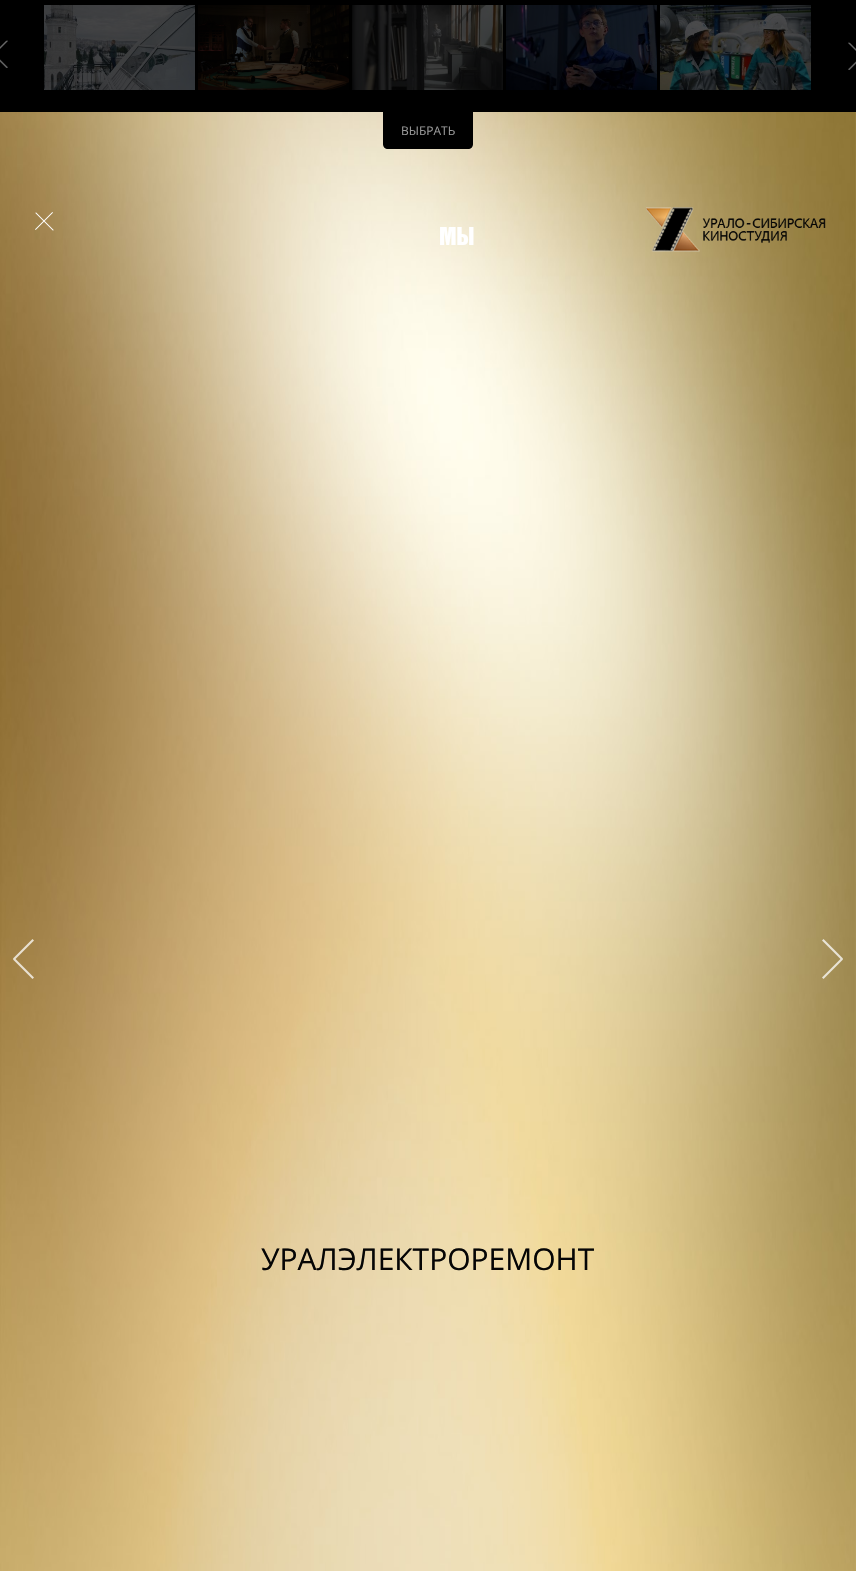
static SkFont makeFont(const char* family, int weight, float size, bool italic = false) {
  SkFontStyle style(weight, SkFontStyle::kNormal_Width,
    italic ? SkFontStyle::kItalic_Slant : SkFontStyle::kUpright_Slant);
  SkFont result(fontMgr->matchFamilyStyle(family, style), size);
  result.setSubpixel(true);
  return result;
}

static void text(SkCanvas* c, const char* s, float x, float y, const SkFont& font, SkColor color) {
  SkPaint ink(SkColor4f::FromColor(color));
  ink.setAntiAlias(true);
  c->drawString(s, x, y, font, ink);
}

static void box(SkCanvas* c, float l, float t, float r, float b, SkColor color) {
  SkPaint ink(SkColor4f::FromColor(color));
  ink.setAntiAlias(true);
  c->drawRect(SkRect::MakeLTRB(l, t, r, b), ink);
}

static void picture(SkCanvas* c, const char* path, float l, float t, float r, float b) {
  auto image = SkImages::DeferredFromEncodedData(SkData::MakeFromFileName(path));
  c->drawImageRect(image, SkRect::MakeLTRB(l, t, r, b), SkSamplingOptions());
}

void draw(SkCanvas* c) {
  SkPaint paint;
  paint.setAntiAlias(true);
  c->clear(0xffffffff);
  picture(c, "img_01.png", 0, 112, 856, 1571);
  box(c, 0, 0, 856, 112, 0xff000000);
  picture(c, "img_02.png", 44, 5, 195, 90);
  picture(c, "img_03.png", 198, 5, 349, 90);
  picture(c, "img_04.png", 352, 5, 503, 90);
  picture(c, "img_05.png", 506, 5, 657, 90);
  picture(c, "img_06.png", 660, 5, 811, 90);
  picture(c, "img_07.png", 0, 40, 8, 68);
  picture(c, "img_08.png", 848, 42, 856, 70);
  paint.setColor(0xff000000);
  c->drawPath(SkPathBuilder().moveTo(383, 112).lineTo(473, 112).lineTo(473, 144).cubicTo(473, 147, 471, 149, 468, 149).lineTo(388, 149).cubicTo(385, 149, 383, 147, 383, 144).close().detach(), paint);
  SkFont face1 = makeFont("Open Sans", 400, 12);
  text(c, "ВЫБРАТЬ", 401, 135, face1, 0xff999999);
  picture(c, "img_09.png", 35, 212, 54, 231);
  picture(c, "img_10.png", 646, 207, 826, 252);
  SkFont face2 = makeFont("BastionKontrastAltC", 400, 25);
  text(c, "МЫ", 439, 245, face2, 0xffffffff);
  picture(c, "img_11.png", 13, 939, 34, 979);
  picture(c, "img_12.png", 822, 939, 843, 979);
  SkFont face3 = makeFont("Open Sans", 400, 30);
  text(c, "УРАЛЭЛЕКТРОРЕМОНТ", 261, 1270, face3, 0xff050505);
}
